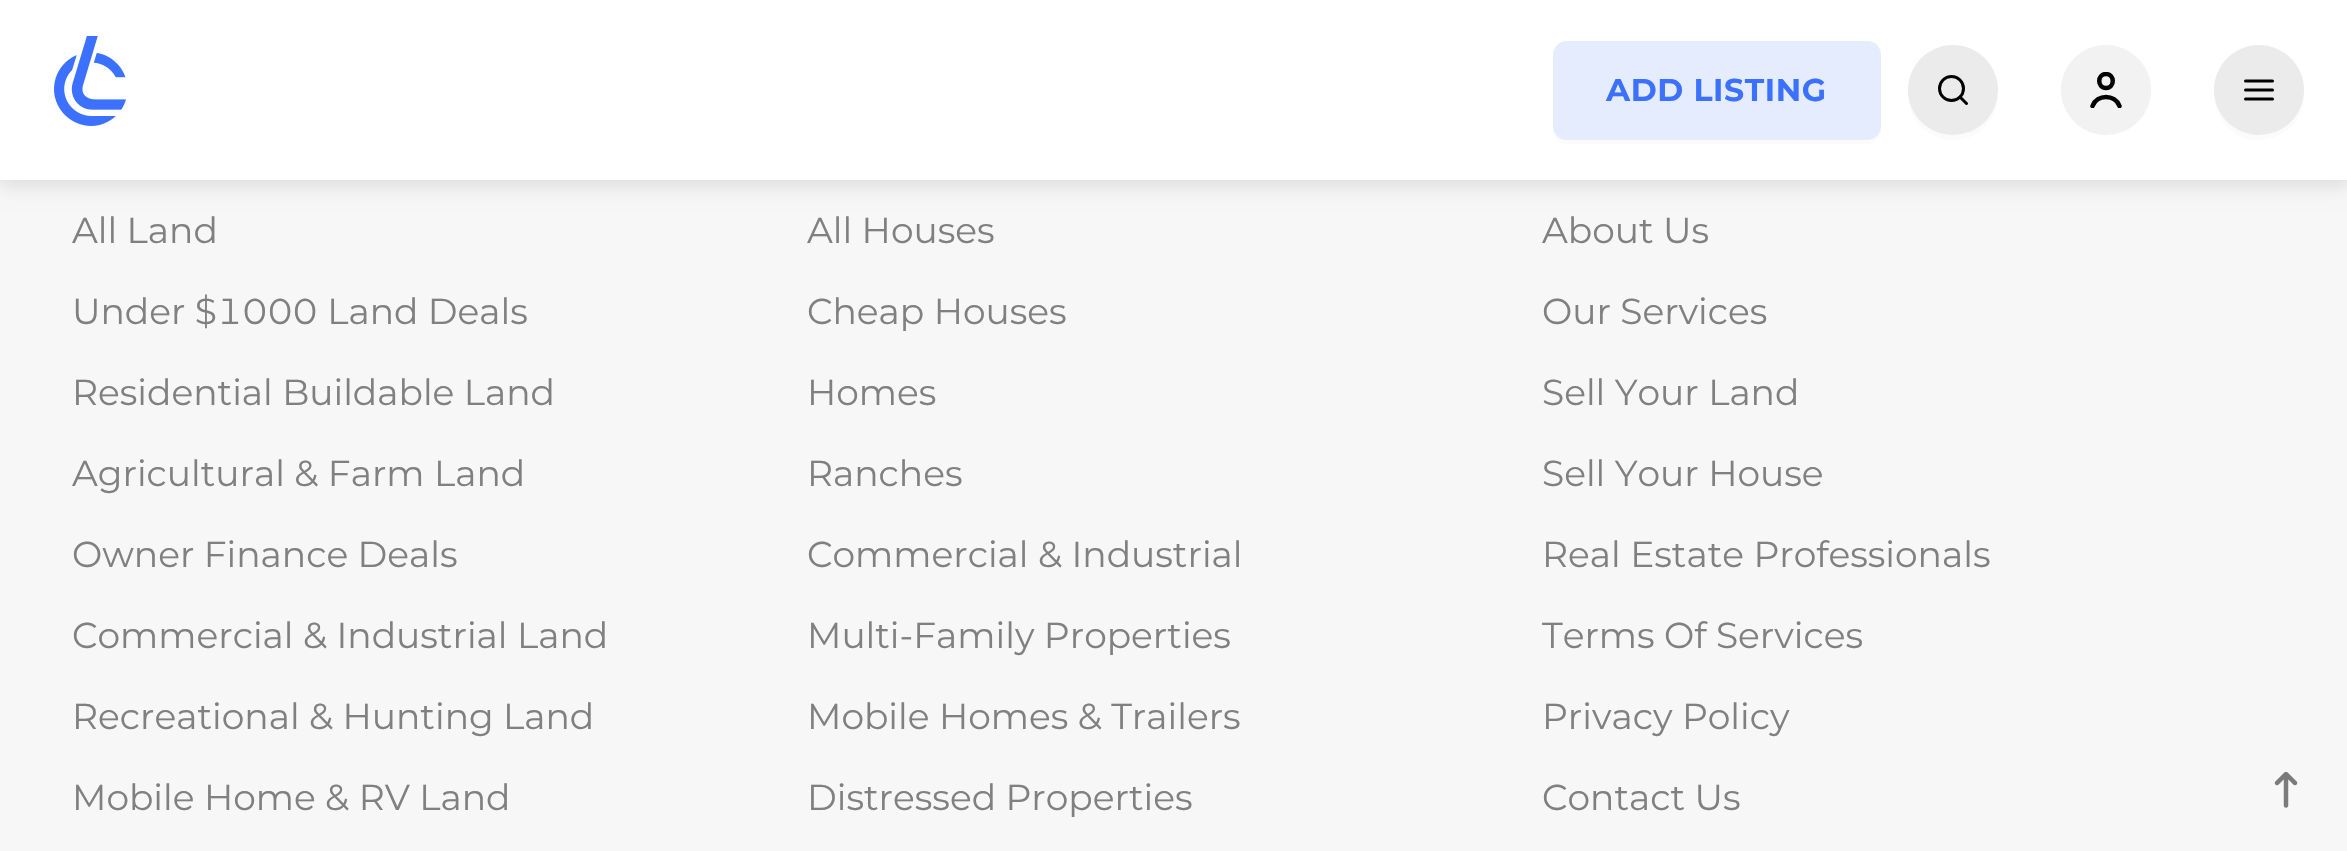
static SkFont makeFont(const char* family, int weight, float size, bool italic = false) {
  SkFontStyle style(weight, SkFontStyle::kNormal_Width,
    italic ? SkFontStyle::kItalic_Slant : SkFontStyle::kUpright_Slant);
  SkFont result(fontMgr->matchFamilyStyle(family, style), size);
  result.setSubpixel(true);
  return result;
}

static void text(SkCanvas* c, const char* s, float x, float y, const SkFont& font, SkColor color) {
  SkPaint ink(SkColor4f::FromColor(color));
  ink.setAntiAlias(true);
  c->drawString(s, x, y, font, ink);
}

static void spacedText(SkCanvas* c, const char* s, float x, float y, const SkFont& font, const SkPaint& ink, float letter, float word) {
  std::vector<SkGlyphID> glyphs(font.countText(s, strlen(s), SkTextEncoding::kUTF8));
  std::vector<float> xs(glyphs.size());
  font.textToGlyphs(s, strlen(s), SkTextEncoding::kUTF8, glyphs);
  font.getXPos(glyphs, xs, x);
  float extra = 0;
  for (size_t i = 0; i < glyphs.size(); i++) {
    xs[i] += extra;
    extra += letter + word * (glyphs[i] == font.unicharToGlyph(' '));
  }
  c->drawTextBlob(SkTextBlob::MakeFromPosHGlyphs(glyphs, xs, y, font), 0, 0, ink);
}

static void box(SkCanvas* c, float l, float t, float r, float b, SkColor color) {
  SkPaint ink(SkColor4f::FromColor(color));
  ink.setAntiAlias(true);
  c->drawRect(SkRect::MakeLTRB(l, t, r, b), ink);
}

static void roundBox(SkCanvas* c, float l, float t, float r, float b, float radius, SkColor color) {
  SkPaint ink(SkColor4f::FromColor(color));
  ink.setAntiAlias(true);
  c->drawRoundRect(SkRect::MakeLTRB(l, t, r, b), radius, radius, ink);
}

static void picture(SkCanvas* c, const char* path, float l, float t, float r, float b) {
  auto image = SkImages::DeferredFromEncodedData(SkData::MakeFromFileName(path));
  c->drawImageRect(image, SkRect::MakeLTRB(l, t, r, b), SkSamplingOptions());
}

void draw(SkCanvas* c) {
  SkPaint paint;
  paint.setAntiAlias(true);
  c->clear(0xfff7f7f7);
  paint.setColor(0x1f000000);
  paint.setMaskFilter(SkMaskFilter::MakeBlur(kNormal_SkBlurStyle, 9));
  c->drawRect(SkRect::MakeLTRB(0, 5, 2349, 185), paint);
  paint.setMaskFilter(nullptr);
  box(c, 0, 0, 2347, 180, 0xffffffff);
  picture(c, "img_01.png", 54, 36, 126, 126);
  paint.setColor(0xfffbfbfb);
  c->drawPath(SkPathBuilder().moveTo(1553, 130).cubicTo(1553, 138, 1559, 144, 1567, 144).lineTo(1867, 144).cubicTo(1875, 144, 1881, 138, 1881, 130).lineTo(1881, 126).cubicTo(1881, 133, 1875, 140, 1868, 140).lineTo(1566, 140).cubicTo(1560, 140, 1555, 135, 1553, 130).close().detach(), paint);
  roundBox(c, 1553, 41, 1881, 140, 14, 0xffe5ecfe);
  SkFont face1 = makeFont("Montserrat", 700, 31.5f);
  paint.setColor(0xff3b71fe);
  spacedText(c, "ADD LISTING", 1606, 101, face1, paint, 0.6f, 0);
  paint.setColor(0xfffbfbfb);
  c->drawPath(SkPathBuilder().moveTo(1908, 92).cubicTo(1906, 138, 1965, 158, 1990, 120).cubicTo(1996, 112, 1998, 102, 1998, 92).cubicTo(1997, 116, 1977, 135, 1953, 135).cubicTo(1929, 135, 1909, 116, 1908, 92).close().detach(), paint);
  paint.setColor(0xffebebeb);
  c->drawCircle(1953, 90, 45, paint);
  paint.setStyle(SkPaint::kStroke_Style);
  paint.setStrokeWidth(3);
  paint.setColor(0xff000000);
  c->drawCircle(1951.5f, 88.5f, 12, paint);
  paint.setStrokeCap(SkPaint::kRound_Cap);
  paint.setStrokeJoin(SkPaint::kRound_Join);
  c->drawPath(SkPathBuilder().moveTo(1966.5f, 103.5f).lineTo(1960, 97).detach(), paint);
  paint.setStyle(SkPaint::kFill_Style);
  paint.setColor(0xfff2f2f2);
  c->drawCircle(2106, 90, 45, paint);
  c->save();
  c->clipRect(SkRect::MakeLTRB(2088, 72, 2124, 108));
  paint.setStyle(SkPaint::kStroke_Style);
  paint.setStrokeWidth(4.5f);
  paint.setStrokeJoin(SkPaint::kMiter_Join);
  paint.setColor(0xff000000);
  c->drawPath(SkPathBuilder().moveTo(2092.5f, 106).cubicTo(2097, 94, 2115, 94, 2119.5f, 106).moveTo(2106, 88).cubicTo(2097, 88, 2097, 74, 2106, 74).cubicTo(2115, 74, 2115, 88, 2106, 88).close().detach(), paint);
  c->restore();
  paint.setStyle(SkPaint::kFill_Style);
  paint.setColor(0xfffbfbfb);
  c->drawPath(SkPathBuilder().moveTo(2214, 92).cubicTo(2214, 102, 2216, 112, 2222, 120).cubicTo(2247, 158, 2306, 138, 2304, 92).cubicTo(2303, 116, 2283, 135, 2259, 135).cubicTo(2235, 135, 2215, 116, 2214, 92).close().detach(), paint);
  paint.setColor(0xffebebeb);
  c->drawCircle(2259, 90, 45, paint);
  paint.setStyle(SkPaint::kStroke_Style);
  paint.setStrokeWidth(3);
  paint.setStrokeJoin(SkPaint::kRound_Join);
  paint.setColor(0xff000000);
  c->drawPath(SkPathBuilder().moveTo(2245.5f, 90).lineTo(2272.5f, 90).moveTo(2245.5f, 81).lineTo(2272.5f, 81).moveTo(2245.5f, 99).lineTo(2272.5f, 99).detach(), paint);
  SkFont face2 = makeFont("Montserrat", 400, 36);
  text(c, "All Land", 72, 243, face2, 0xff808080);
  SkFont face3 = makeFont("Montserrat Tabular", 400, 36);
  text(c, "Under $1000 Land Deals", 72, 324, face3, 0xff808080);
  text(c, "Residential Buildable Land", 72, 405, face2, 0xff808080);
  text(c, "Agricultural & Farm Land", 72, 486, face2, 0xff808080);
  text(c, "Owner Finance Deals", 72, 567, face2, 0xff808080);
  text(c, "Commercial & Industrial Land", 72, 648, face2, 0xff808080);
  text(c, "Recreational & Hunting Land", 72, 729, face2, 0xff808080);
  text(c, "Mobile Home & RV Land", 72, 810, face2, 0xff808080);
  text(c, "All Houses", 807, 243, face2, 0xff808080);
  text(c, "Cheap Houses", 807, 324, face2, 0xff808080);
  text(c, "Homes", 807, 405, face2, 0xff808080);
  text(c, "Ranches", 807, 486, face2, 0xff808080);
  text(c, "Commercial & Industrial", 807, 567, face2, 0xff808080);
  text(c, "Multi-Family Properties", 807, 648, face2, 0xff808080);
  text(c, "Mobile Homes & Trailers", 807, 729, face2, 0xff808080);
  text(c, "Distressed Properties", 807, 810, face2, 0xff808080);
  text(c, "About Us", 1542, 243, face2, 0xff808080);
  text(c, "Our Services", 1542, 324, face2, 0xff808080);
  text(c, "Sell Your Land", 1542, 405, face2, 0xff808080);
  text(c, "Sell Your House", 1542, 486, face2, 0xff808080);
  text(c, "Real Estate Professionals", 1542, 567, face2, 0xff808080);
  text(c, "Terms Of Services", 1542, 648, face2, 0xff808080);
  text(c, "Privacy Policy", 1542, 729, face2, 0xff808080);
  text(c, "Contact Us", 1542, 810, face2, 0xff808080);
  picture(c, "img_02.png", 2274, 772, 2298, 808);
}
